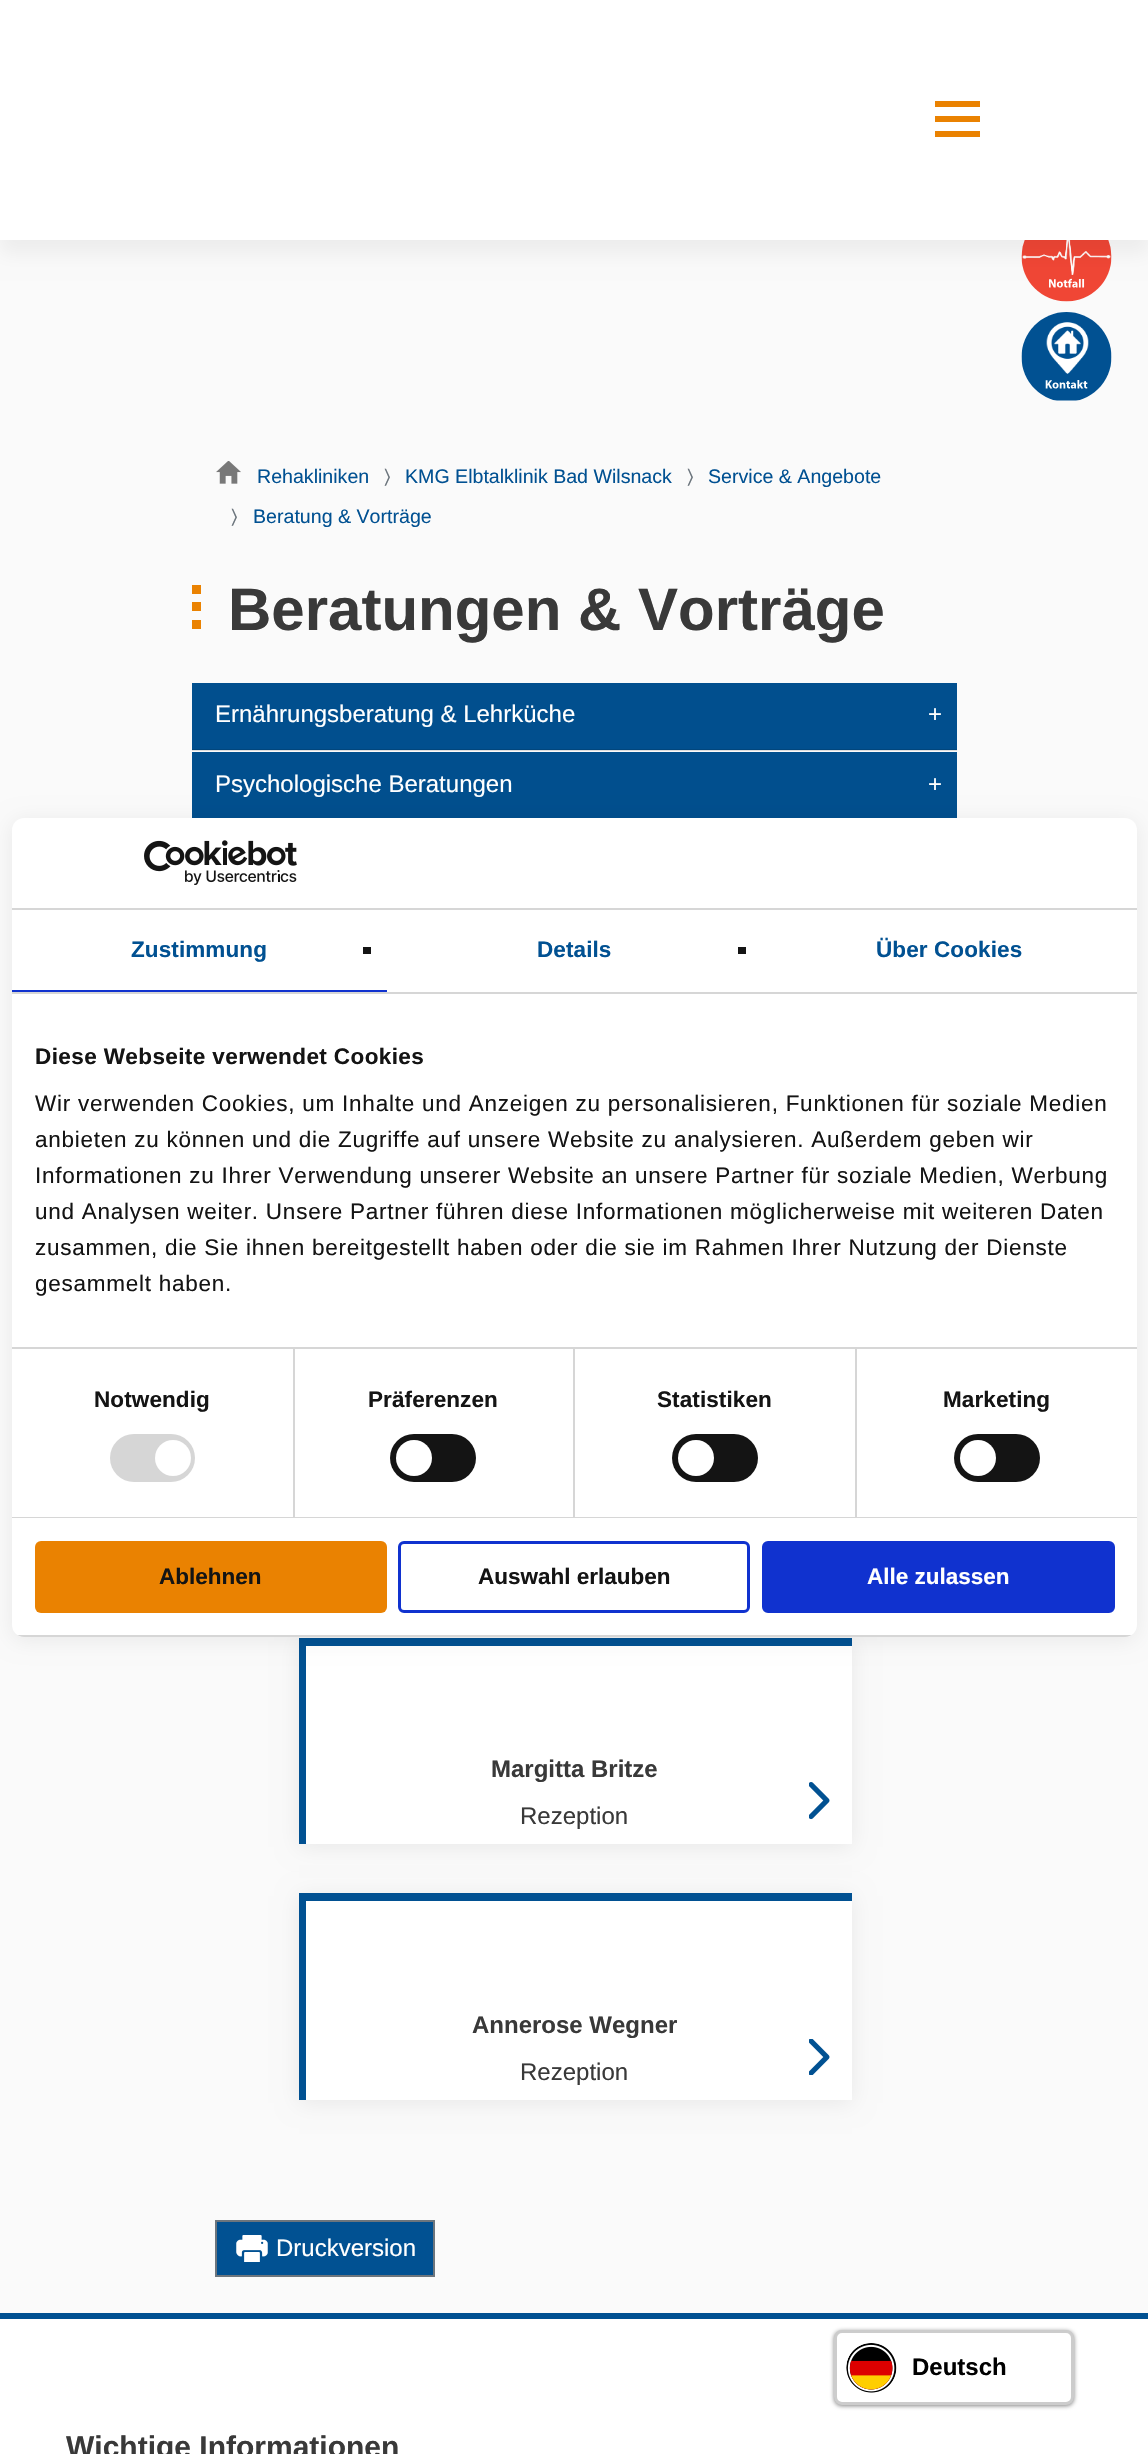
static SkFont makeFont(const char* family, int weight, float size, bool italic = false) {
  SkFontStyle style(weight, SkFontStyle::kNormal_Width,
    italic ? SkFontStyle::kItalic_Slant : SkFontStyle::kUpright_Slant);
  SkFont result(fontMgr->matchFamilyStyle(family, style), size);
  result.setSubpixel(true);
  return result;
}

static void text(SkCanvas* c, const char* s, float x, float y, const SkFont& font, SkColor color) {
  SkPaint ink(SkColor4f::FromColor(color));
  ink.setAntiAlias(true);
  c->drawString(s, x, y, font, ink);
}

static void spacedText(SkCanvas* c, const char* s, float x, float y, const SkFont& font, const SkPaint& ink, float letter, float word) {
  std::vector<SkGlyphID> glyphs(font.countText(s, strlen(s), SkTextEncoding::kUTF8));
  std::vector<float> xs(glyphs.size());
  font.textToGlyphs(s, strlen(s), SkTextEncoding::kUTF8, glyphs);
  font.getXPos(glyphs, xs, x);
  float extra = 0;
  for (size_t i = 0; i < glyphs.size(); i++) {
    xs[i] += extra;
    extra += letter + word * (glyphs[i] == font.unicharToGlyph(' '));
  }
  c->drawTextBlob(SkTextBlob::MakeFromPosHGlyphs(glyphs, xs, y, font), 0, 0, ink);
}

static void box(SkCanvas* c, float l, float t, float r, float b, SkColor color) {
  SkPaint ink(SkColor4f::FromColor(color));
  ink.setAntiAlias(true);
  c->drawRect(SkRect::MakeLTRB(l, t, r, b), ink);
}

static void roundBox(SkCanvas* c, float l, float t, float r, float b, float radius, SkColor color) {
  SkPaint ink(SkColor4f::FromColor(color));
  ink.setAntiAlias(true);
  c->drawRoundRect(SkRect::MakeLTRB(l, t, r, b), radius, radius, ink);
}

static void picture(SkCanvas* c, const char* path, float l, float t, float r, float b) {
  auto image = SkImages::DeferredFromEncodedData(SkData::MakeFromFileName(path));
  c->drawImageRect(image, SkRect::MakeLTRB(l, t, r, b), SkSamplingOptions());
}

void draw(SkCanvas* c) {
  SkPaint paint;
  paint.setAntiAlias(true);
  c->clear(0xfffafafa);
  box(c, 192, 750, 957, 751, 0xffdcdcdc);
  picture(c, "img_01.png", 1021, 240, 1112, 302);
  paint.setColor(0x0d070202);
  paint.setMaskFilter(SkMaskFilter::MakeBlur(kNormal_SkBlurStyle, 9));
  c->drawRect(SkRect::MakeLTRB(0, 14, 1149, 254), paint);
  paint.setMaskFilter(nullptr);
  box(c, 0, 0, 1148, 240, 0xffffffff);
  box(c, 935, 116, 980, 122, 0xffea8201);
  box(c, 935, 101, 980, 107, 0xffea8201);
  box(c, 935, 131, 980, 137, 0xffea8201);
  picture(c, "img_02.png", 1021, 312, 1112, 401);
  picture(c, "img_03.png", 216, 461, 241, 484);
  SkFont face1 = makeFont("Liberation Sans", 400, 19.6f);
  text(c, "Rehakliniken", 257, 483, face1, 0xff015192);
  SkFont face2 = makeFont("FreeSans", 400, 19.6f);
  text(c, "〉", 384, 483, face2, 0xff6c757d);
  text(c, "KMG Elbtalklinik Bad Wilsnack", 405, 483, face1, 0xff015192);
  text(c, "〉", 687, 483, face2, 0xff6c757d);
  text(c, "Service & Angebote", 708, 483, face1, 0xff015192);
  text(c, "〉", 231, 523, face2, 0xff6c757d);
  text(c, "Beratung & Vorträge", 253, 523, face1, 0xff015192);
  box(c, 192, 585, 201, 594, 0xffea8201);
  box(c, 192, 602, 201, 611, 0xffea8201);
  box(c, 192, 620, 201, 629, 0xffea8201);
  SkFont face3 = makeFont("Liberation Sans", 700, 60);
  text(c, "Beratungen & Vorträge", 228, 630, face3, 0xff393939);
  box(c, 192, 683, 957, 688, 0xff015192);
  paint.setColor(0xff014f8e);
  c->drawPath(SkPathBuilder().moveTo(197, 683).lineTo(952, 683).cubicTo(955, 683, 957, 685, 957, 688).lineTo(957, 750).lineTo(192, 750).lineTo(192, 688).cubicTo(192, 685, 194, 683, 197, 683).close().detach(), paint);
  box(c, 192, 749, 957, 750, 0xff01467d);
  SkFont face4 = makeFont("Liberation Sans", 400, 24);
  text(c, "Ernährungsberatung & Lehrküche", 215, 722, face4, 0xffffffff);
  text(c, "+", 928, 722, face4, 0xffffffff);
  box(c, 192, 752, 957, 757, 0xff015192);
  c->drawPath(SkPathBuilder().moveTo(197, 752).lineTo(952, 752).cubicTo(955, 752, 957, 754, 957, 757).lineTo(957, 821).lineTo(192, 821).lineTo(192, 757).cubicTo(192, 754, 194, 752, 197, 752).close().detach(), paint);
  text(c, "Psychologische Beratungen", 215, 792, face4, 0xffffffff);
  text(c, "+", 928, 792, face4, 0xffffffff);
  paint.setColor(0x12000000);
  paint.setMaskFilter(SkMaskFilter::MakeBlur(kNormal_SkBlurStyle, 10.5f));
  c->drawRect(SkRect::MakeLTRB(299, 1641, 852, 1847), paint);
  paint.setMaskFilter(nullptr);
  box(c, 306, 1646, 852, 1844, 0xffffffff);
  box(c, 299, 1638, 306, 1844, 0xff015192);
  box(c, 299, 1638, 852, 1646, 0xff015192);
  SkFont face5 = makeFont("Liberation Sans", 700, 24);
  text(c, "Margitta Britze", 491, 1777, face5, 0xff393939);
  text(c, "Rezeption", 520, 1824, face4, 0xff393939);
  picture(c, "img_04.png", 809, 1782, 830, 1820);
  paint.setMaskFilter(SkMaskFilter::MakeBlur(kNormal_SkBlurStyle, 10.5f));
  c->drawRect(SkRect::MakeLTRB(299, 1896, 852, 2103), paint);
  paint.setMaskFilter(nullptr);
  box(c, 306, 1901, 852, 2100, 0xffffffff);
  box(c, 299, 1893, 306, 2100, 0xff015192);
  box(c, 299, 1893, 852, 1901, 0xff015192);
  text(c, "Annerose Wegner", 472, 2033, face5, 0xff393939);
  text(c, "Rezeption", 520, 2080, face4, 0xff393939);
  picture(c, "img_05.png", 809, 2039, 830, 2075);
  paint.setColor(0xff015192);
  c->drawRect(SkRect::MakeLTRB(216, 2221, 434, 2276), paint);
  paint.setStyle(SkPaint::kStroke_Style);
  paint.setStrokeWidth(2);
  paint.setColor(0xff6c757d);
  c->drawRect(SkRect::MakeLTRB(216, 2221, 434, 2276), paint);
  picture(c, "img_06.png", 236, 2235, 268, 2262);
  text(c, "Druckversion", 276, 2256, face4, 0xffffffff);
  paint.setStyle(SkPaint::kFill_Style);
  paint.setColor(0x12000000);
  paint.setMaskFilter(SkMaskFilter::MakeBlur(kNormal_SkBlurStyle, 10.5f));
  c->drawRoundRect(SkRect::MakeLTRB(12, 821, 1137, 1640), 12, 12, paint);
  paint.setMaskFilter(nullptr);
  roundBox(c, 12, 818, 1137, 1637, 12, 0xffffffff);
  box(c, 12, 908, 1137, 910, 0xffd6d6d6);
  picture(c, "img_07.png", 144, 840, 297, 885);
  box(c, 12, 992, 1137, 994, 0xffd6d6d6);
  box(c, 12, 990, 387, 992, 0xff1032cf);
  SkFont face6 = makeFont("Liberation Sans", 700, 22.5f);
  paint.setColor(0xff015192);
  spacedText(c, "Zustimmung", 131, 957, face6, paint, 0.1f, 0);
  box(c, 363, 947, 371, 954, 0xff141414);
  spacedText(c, "Details", 537, 957, face6, paint, 0.1f, 0);
  box(c, 738, 947, 746, 954, 0xff141414);
  spacedText(c, "Über Cookies", 876, 957, face6, paint, 0.1f, 0);
  box(c, 12, 1347, 1137, 1349, 0xffd6d6d6);
  paint.setColor(0xff141414);
  spacedText(c, "Diese Webseite verwendet Cookies", 35, 1064, face6, paint, 0.4f, 0);
  SkFont face7 = makeFont("Liberation Sans", 400, 22.5f);
  spacedText(c, "Wir verwenden Cookies, um Inhalte und Anzeigen zu personalisieren, Funktionen für soziale Medien", 35, 1111, face7, paint, 0.75f, 0);
  spacedText(c, "anbieten zu können und die Zugriffe auf unsere Website zu analysieren. Außerdem geben wir", 35, 1147, face7, paint, 0.75f, 0);
  spacedText(c, "Informationen zu Ihrer Verwendung unserer Website an unsere Partner für soziale Medien, Werbung", 35, 1183, face7, paint, 0.75f, 0);
  spacedText(c, "und Analysen weiter. Unsere Partner führen diese Informationen möglicherweise mit weiteren Daten", 35, 1219, face7, paint, 0.75f, 0);
  spacedText(c, "zusammen, die Sie ihnen bereitgestellt haben oder die sie im Rahmen Ihrer Nutzung der Dienste", 35, 1255, face7, paint, 0.75f, 0);
  spacedText(c, "gesammelt haben.", 35, 1291, face7, paint, 0.75f, 0);
  box(c, 12, 1517, 1137, 1518, 0xffd6d6d6);
  box(c, 293, 1349, 295, 1517, 0xffd6d6d6);
  spacedText(c, "Notwendig", 94, 1407, face6, paint, 0.1f, 0);
  roundBox(c, 110, 1434, 195, 1482, 24, 0xffd6d6d6);
  paint.setColor(0xffffffff);
  c->drawCircle(173, 1458, 18, paint);
  box(c, 573, 1349, 575, 1517, 0xffd6d6d6);
  paint.setColor(0xff141414);
  spacedText(c, "Präferenzen", 368, 1407, face6, paint, 0.1f, 0);
  roundBox(c, 390, 1434, 476, 1482, 24, 0xff141414);
  paint.setColor(0xffffffff);
  c->drawCircle(414, 1458, 18, paint);
  box(c, 855, 1349, 857, 1517, 0xffd6d6d6);
  paint.setColor(0xff141414);
  spacedText(c, "Statistiken", 657, 1407, face6, paint, 0.1f, 0);
  roundBox(c, 672, 1434, 758, 1482, 24, 0xff141414);
  paint.setColor(0xffffffff);
  c->drawCircle(696, 1458, 18, paint);
  paint.setColor(0xff141414);
  spacedText(c, "Marketing", 943, 1407, face6, paint, 0.1f, 0);
  roundBox(c, 954, 1434, 1040, 1482, 24, 0xff141414);
  paint.setColor(0xffffffff);
  c->drawCircle(978, 1458, 18, paint);
  c->save();
  c->clipPath(SkPathBuilder().moveTo(24, 818).lineTo(1125, 818).cubicTo(1131.5f, 818, 1137, 823.5f, 1137, 830).lineTo(1137, 1625).cubicTo(1137, 1631.5f, 1131.5f, 1637, 1125, 1637).lineTo(24, 1637).cubicTo(17.5f, 1637, 12, 1631.5f, 12, 1625).lineTo(12, 830).cubicTo(12, 823.5f, 17.5f, 818, 24, 818).close().detach(), true);
  box(c, 12, 1635, 1137, 1637, 0xffd6d6d6);
  c->restore();
  roundBox(c, 35, 1541, 387, 1613, 6, 0xffea8201);
  text(c, "Ablehnen", 159, 1584, face6, 0xff141414);
  paint.setStyle(SkPaint::kStroke_Style);
  paint.setStrokeWidth(3);
  paint.setColor(0xff1032cf);
  c->drawRoundRect(SkRect::MakeLTRB(399.5f, 1542.5f, 748.5f, 1611.5f), 4.5f, 4.5f, paint);
  text(c, "Auswahl erlauben", 478, 1584, face6, 0xff141414);
  paint.setStyle(SkPaint::kFill_Style);
  c->drawRoundRect(SkRect::MakeLTRB(763.5f, 1542.5f, 1113.5f, 1611.5f), 4.5f, 4.5f, paint);
  paint.setStyle(SkPaint::kStroke_Style);
  c->drawRoundRect(SkRect::MakeLTRB(763.5f, 1542.5f, 1113.5f, 1611.5f), 4.5f, 4.5f, paint);
  text(c, "Alle zulassen", 867, 1584, face6, 0xffffffff);
  box(c, 0, 2319, 1148, 2454, 0xffffffff);
  paint.setStyle(SkPaint::kFill_Style);
  paint.setColor(0xff848484);
  paint.setMaskFilter(SkMaskFilter::MakeBlur(kNormal_SkBlurStyle, 2));
  c->drawRoundRect(SkRect::MakeLTRB(834, 2331, 1074, 2406), 8, 8, paint);
  paint.setMaskFilter(nullptr);
  paint.setColor(0xffffffff);
  c->drawRoundRect(SkRect::MakeLTRB(835.5f, 2331.5f, 1072.5f, 2403.5f), 6.5f, 6.5f, paint);
  paint.setStyle(SkPaint::kStroke_Style);
  paint.setColor(0xffcccccc);
  c->drawRoundRect(SkRect::MakeLTRB(835.5f, 2331.5f, 1072.5f, 2403.5f), 6.5f, 6.5f, paint);
  picture(c, "img_08.png", 846, 2343, 897, 2393);
  text(c, "Deutsch", 912, 2375, face5, 0xff000000);
  box(c, 0, 2313, 1148, 2319, 0xff015192);
  SkFont face8 = makeFont("Liberation Sans", 700, 30);
  text(c, "Wichtige Informationen", 66, 2457, face8, 0xff393939);
}
